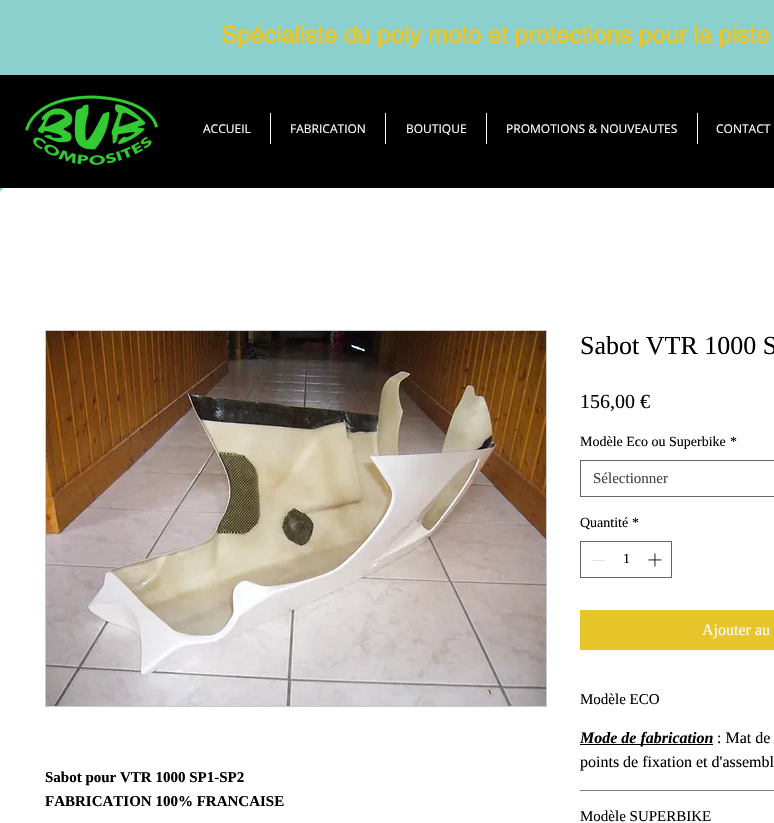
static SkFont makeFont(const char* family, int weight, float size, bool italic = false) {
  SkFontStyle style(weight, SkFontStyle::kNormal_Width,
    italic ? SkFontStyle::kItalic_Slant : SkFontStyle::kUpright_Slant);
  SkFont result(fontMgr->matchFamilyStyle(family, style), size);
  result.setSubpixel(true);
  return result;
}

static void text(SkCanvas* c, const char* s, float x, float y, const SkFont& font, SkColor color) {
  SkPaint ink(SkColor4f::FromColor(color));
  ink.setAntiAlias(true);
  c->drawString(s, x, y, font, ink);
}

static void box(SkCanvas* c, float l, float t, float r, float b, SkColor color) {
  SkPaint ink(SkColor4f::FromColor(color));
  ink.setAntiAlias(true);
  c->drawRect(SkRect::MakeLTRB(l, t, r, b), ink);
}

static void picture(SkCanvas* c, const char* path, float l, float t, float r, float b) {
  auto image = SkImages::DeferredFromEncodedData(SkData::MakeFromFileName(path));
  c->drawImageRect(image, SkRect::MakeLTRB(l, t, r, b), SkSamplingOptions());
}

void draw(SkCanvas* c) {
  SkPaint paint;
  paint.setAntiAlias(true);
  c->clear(0xff8bd0cd);
  SkFont face1 = makeFont("helvetica", 700, 24);
  text(c, "Spécialiste du poly moto et protections pour la piste", 221, 43, face1, 0xffe8c529);
  box(c, 0, 75, 774, 188, 0xff000000);
  picture(c, "img_01.png", 25, 95, 158, 165);
  SkFont face2 = makeFont("Open Sans", 400, 12);
  text(c, "ACCUEIL", 203, 133, face2, 0xffffffff);
  box(c, 270, 113, 271, 144, 0xffffffff);
  text(c, "FABRICATION", 290, 133, face2, 0xffffffff);
  box(c, 385, 113, 386, 144, 0xffffffff);
  text(c, "BOUTIQUE", 406, 133, face2, 0xffffffff);
  box(c, 486, 113, 487, 144, 0xffffffff);
  text(c, "PROMOTIONS & NOUVEAUTES", 506, 133, face2, 0xffffffff);
  box(c, 697, 113, 698, 144, 0xffffffff);
  text(c, "CONTACT", 716, 133, face2, 0xffffffff);
  paint.setColor(0xffffffff);
  c->drawRoundRect(SkRect::MakeLTRB(0.5f, 188.5f, 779.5f, 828.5f), 4.5f, 4.5f, paint);
  paint.setStyle(SkPaint::kStroke_Style);
  paint.setStrokeWidth(1);
  c->drawRoundRect(SkRect::MakeLTRB(0.5f, 188.5f, 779.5f, 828.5f), 4.5f, 4.5f, paint);
  paint.setColor(0xffcacaca);
  c->drawRect(SkRect::MakeLTRB(45.5f, 330.5f, 546.5f, 706.5f), paint);
  picture(c, "img_02.png", 46, 331, 546, 706);
  SkFont face3 = makeFont("Liberation Serif", 700, 15);
  text(c, "Sabot pour VTR 1000 SP1-SP2", 45, 782, face3, 0xff000000);
  text(c, "FABRICATION 100% FRANCAISE", 45, 806, face3, 0xff000000);
  SkFont face4 = makeFont("Liberation Serif", 400, 26);
  text(c, "Sabot VTR 1000 S", 580, 354, face4, 0xff000000);
  SkFont face5 = makeFont("Liberation Serif", 400, 20);
  text(c, "156,00 €", 580, 408, face5, 0xff000000);
  SkFont face6 = makeFont("Liberation Serif", 400, 14);
  text(c, "Modèle Eco ou Superbike", 580, 446, face6, 0xff000000);
  text(c, "*", 730, 446, face6, 0xff000000);
  paint.setColor(0xff666666);
  c->drawRect(SkRect::MakeLTRB(580.5f, 460.5f, 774.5f, 496.5f), paint);
  SkFont face7 = makeFont("Liberation Serif", 400, 15);
  text(c, "Sélectionner", 593, 483, face7, 0xff444444);
  text(c, "Quantité", 580, 527, face6, 0xff000000);
  text(c, "*", 632, 527, face6, 0xff000000);
  c->drawRect(SkRect::MakeLTRB(580.5f, 541.5f, 671.5f, 577.5f), paint);
  box(c, 592, 560, 605, 561, 0xffe3e3e3);
  text(c, "1", 623, 563, face6, 0xff000000);
  picture(c, "img_03.png", 648, 553, 662, 567);
  box(c, 580, 610, 774, 650, 0xffe8c529);
  SkFont face8 = makeFont("Liberation Serif", 400, 16);
  text(c, "Ajouter au", 702, 635, face8, 0xffffffff);
  box(c, 580, 790, 774, 791, 0xff7f7e7e);
  text(c, "Modèle ECO", 580, 704, face7, 0xff000000);
  box(c, 580, 744, 713, 745, 0xff000000);
  SkFont face9 = makeFont("Liberation Serif", 700, 16, true);
  text(c, "Mode de fabrication", 580, 743, face9, 0xff000000);
  text(c, ": Mat de", 717, 743, face8, 0xff000000);
  text(c, "points de fixation et d'assembl", 580, 767, face8, 0xff000000);
  text(c, "Modèle SUPERBIKE", 580, 821, face7, 0xff000000);
}
